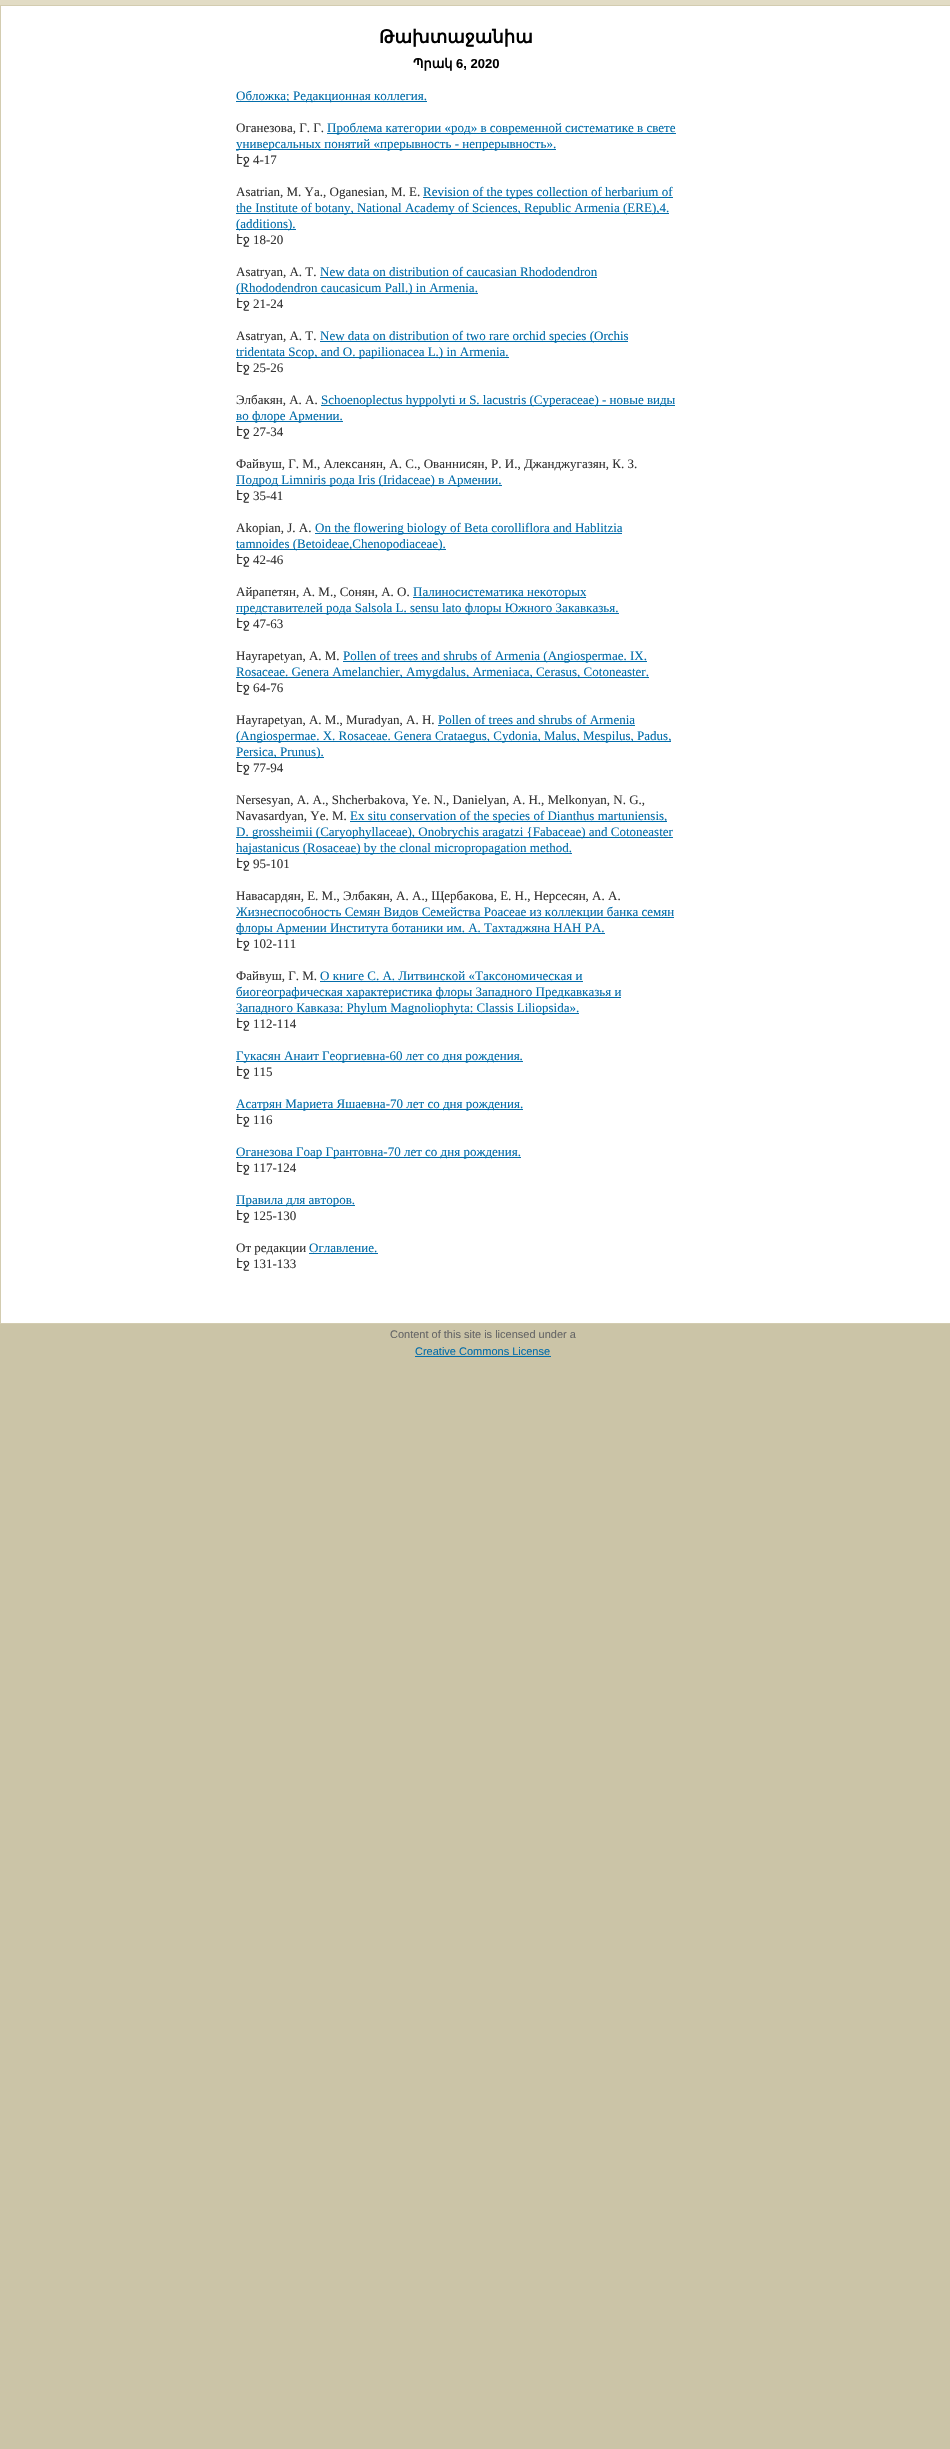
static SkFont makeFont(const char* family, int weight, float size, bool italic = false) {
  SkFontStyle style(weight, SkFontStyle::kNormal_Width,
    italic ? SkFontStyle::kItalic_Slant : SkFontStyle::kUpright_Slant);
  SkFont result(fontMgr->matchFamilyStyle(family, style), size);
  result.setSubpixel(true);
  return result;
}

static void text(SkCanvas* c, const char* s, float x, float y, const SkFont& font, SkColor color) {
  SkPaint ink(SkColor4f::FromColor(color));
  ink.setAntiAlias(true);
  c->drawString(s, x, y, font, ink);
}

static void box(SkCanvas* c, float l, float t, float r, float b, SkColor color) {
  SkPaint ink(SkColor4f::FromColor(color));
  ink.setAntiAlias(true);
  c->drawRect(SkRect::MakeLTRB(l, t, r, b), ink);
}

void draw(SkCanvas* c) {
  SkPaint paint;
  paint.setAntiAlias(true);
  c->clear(0xffcbc4a7);
  box(c, 0, 0, 950, 5, 0xffe2dcc5);
  paint.setColor(0xffffffff);
  c->drawRect(SkRect::MakeLTRB(0.5f, 5.5f, 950.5f, 1323.5f), paint);
  paint.setStyle(SkPaint::kStroke_Style);
  paint.setStrokeWidth(1);
  paint.setColor(0xffd3ccb0);
  c->drawRect(SkRect::MakeLTRB(0.5f, 5.5f, 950.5f, 1323.5f), paint);
  SkFont face1 = makeFont("DejaVu Sans", 700, 18);
  text(c, "Թախտաջանիա", 379, 43, face1, 0xff000000);
  SkFont face2 = makeFont("DejaVu Sans", 700, 13);
  text(c, "Պրակ", 413, 68, face2, 0xff000000);
  SkFont face3 = makeFont("Liberation Sans", 700, 13);
  text(c, "6, 2020", 456, 68, face3, 0xff000000);
  box(c, 236, 101, 427, 102, 0xff036daa);
  SkFont face4 = makeFont("Liberation Serif", 400, 13);
  text(c, "Обложка; Редакционная коллегия.", 236, 100, face4, 0xff036daa);
  text(c, "Оганезова, Г. Г.", 236, 132, face4, 0xff333333);
  box(c, 327, 133, 676, 134, 0xff036daa);
  text(c, "Проблема категории «род» в современной систематике в свете", 327, 132, face4, 0xff036daa);
  box(c, 236, 149, 556, 150, 0xff036daa);
  text(c, "универсальных понятий «прерывность - непрерывность».", 236, 148, face4, 0xff036daa);
  SkFont face5 = makeFont("DejaVu Sans", 400, 13);
  text(c, "էջ", 236, 164, face5, 0xff333333);
  text(c, "4-17", 253, 164, face4, 0xff333333);
  text(c, "Asatrian, M. Ya., Oganesian, M. E.", 236, 196, face4, 0xff333333);
  box(c, 423, 197, 673, 198, 0xff036daa);
  text(c, "Revision of the types collection of herbarium of", 423, 196, face4, 0xff036daa);
  box(c, 236, 213, 669, 214, 0xff036daa);
  text(c, "the Institute of botany, National Academy of Sciences, Republic Armenia (ERE),4.", 236, 212, face4, 0xff036daa);
  box(c, 236, 229, 296, 230, 0xff036daa);
  text(c, "(additions).", 236, 228, face4, 0xff036daa);
  text(c, "էջ", 236, 244, face5, 0xff333333);
  text(c, "18-20", 253, 244, face4, 0xff333333);
  text(c, "Asatryan, A. T.", 236, 276, face4, 0xff333333);
  text(c, "New data on distribution of caucasian Rhododendron", 320, 276, face4, 0xff036daa);
  box(c, 320, 277, 597, 278, 0xff036daa);
  box(c, 236, 293, 478, 294, 0xff036daa);
  text(c, "(Rhododendron caucasicum Pall.) in Armenia.", 236, 292, face4, 0xff036daa);
  text(c, "էջ", 236, 308, face5, 0xff333333);
  text(c, "21-24", 253, 308, face4, 0xff333333);
  text(c, "Asatryan, A. T.", 236, 340, face4, 0xff333333);
  box(c, 320, 341, 628, 342, 0xff036daa);
  text(c, "New data on distribution of two rare orchid species (Orchis", 320, 340, face4, 0xff036daa);
  box(c, 236, 357, 509, 358, 0xff036daa);
  text(c, "tridentata Scop, and O. papilionacea L.) in Armenia.", 236, 356, face4, 0xff036daa);
  text(c, "էջ", 236, 372, face5, 0xff333333);
  text(c, "25-26", 253, 372, face4, 0xff333333);
  text(c, "Элбакян, А. А.", 236, 404, face4, 0xff333333);
  box(c, 321, 405, 675, 406, 0xff036daa);
  text(c, "Schoenoplectus hyppolyti и S. lacustris (Cyperaceae) - новые виды", 321, 404, face4, 0xff036daa);
  box(c, 236, 421, 343, 422, 0xff036daa);
  text(c, "во флоре Армении.", 236, 420, face4, 0xff036daa);
  text(c, "էջ", 236, 436, face5, 0xff333333);
  text(c, "27-34", 253, 436, face4, 0xff333333);
  text(c, "Файвуш, Г. М., Алексанян, А. С., Ованнисян, Р. И., Джанджугазян, К. З.", 236, 468, face4, 0xff333333);
  box(c, 236, 485, 502, 486, 0xff036daa);
  text(c, "Подрод Limniris рода Iris (Iridaceae) в Армении.", 236, 484, face4, 0xff036daa);
  text(c, "էջ", 236, 500, face5, 0xff333333);
  text(c, "35-41", 253, 500, face4, 0xff333333);
  text(c, "Akopian, J. A.", 236, 532, face4, 0xff333333);
  box(c, 315, 533, 622, 534, 0xff036daa);
  text(c, "On the flowering biology of Beta corolliflora and Hablitzia", 315, 532, face4, 0xff036daa);
  box(c, 236, 549, 446, 550, 0xff036daa);
  text(c, "tamnoides (Betoideae,Chenopodiaceae).", 236, 548, face4, 0xff036daa);
  text(c, "էջ", 236, 564, face5, 0xff333333);
  text(c, "42-46", 253, 564, face4, 0xff333333);
  text(c, "Айрапетян, А. М., Сонян, А. О.", 236, 596, face4, 0xff333333);
  box(c, 413, 597, 586, 598, 0xff036daa);
  text(c, "Палиносистематика некоторых", 413, 596, face4, 0xff036daa);
  box(c, 236, 613, 619, 614, 0xff036daa);
  text(c, "представителей рода Salsola L. sensu lato флоры Южного Закавказья.", 236, 612, face4, 0xff036daa);
  text(c, "էջ", 236, 628, face5, 0xff333333);
  text(c, "47-63", 253, 628, face4, 0xff333333);
  text(c, "Hayrapetyan, A. M.", 236, 660, face4, 0xff333333);
  box(c, 343, 661, 647, 662, 0xff036daa);
  text(c, "Pollen of trees and shrubs of Armenia (Angiospermae. IX.", 343, 660, face4, 0xff036daa);
  box(c, 236, 677, 649, 678, 0xff036daa);
  text(c, "Rosaceae. Genera Amelanchier, Amygdalus, Armeniaca, Cerasus, Cotoneaster.", 236, 676, face4, 0xff036daa);
  text(c, "էջ", 236, 692, face5, 0xff333333);
  text(c, "64-76", 253, 692, face4, 0xff333333);
  text(c, "Hayrapetyan, A. M., Muradyan, A. H.", 236, 724, face4, 0xff333333);
  text(c, "Pollen of trees and shrubs of Armenia", 438, 724, face4, 0xff036daa);
  box(c, 438, 725, 635, 726, 0xff036daa);
  box(c, 236, 741, 671, 742, 0xff036daa);
  text(c, "(Angiospermae. X. Rosaceae. Genera Crataegus, Cydonia, Malus, Mespilus, Padus,", 236, 740, face4, 0xff036daa);
  box(c, 236, 757, 324, 758, 0xff036daa);
  text(c, "Persica, Prunus).", 236, 756, face4, 0xff036daa);
  text(c, "էջ", 236, 772, face5, 0xff333333);
  text(c, "77-94", 253, 772, face4, 0xff333333);
  text(c, "Nersesyan, A. A., Shcherbakova, Ye. N., Danielyan, A. H., Melkonyan, N. G.,", 236, 804, face4, 0xff333333);
  text(c, "Navasardyan, Ye. M.", 236, 820, face4, 0xff333333);
  box(c, 350, 821, 667, 822, 0xff036daa);
  text(c, "Ex situ conservation of the species of Dianthus martuniensis,", 350, 820, face4, 0xff036daa);
  box(c, 236, 837, 673, 838, 0xff036daa);
  text(c, "D. grossheimii (Caryophyllaceae), Onobrychis aragatzi {Fabaceae) and Cotoneaster", 236, 836, face4, 0xff036daa);
  box(c, 236, 853, 572, 854, 0xff036daa);
  text(c, "hajastanicus (Rosaceae) by the clonal micropropagation method.", 236, 852, face4, 0xff036daa);
  text(c, "էջ", 236, 868, face5, 0xff333333);
  text(c, "95-101", 253, 868, face4, 0xff333333);
  text(c, "Навасардян, Е. М., Элбакян, А. А., Щербакова, Е. Н., Нерсесян, А. А.", 236, 900, face4, 0xff333333);
  box(c, 236, 917, 674, 918, 0xff036daa);
  text(c, "Жизнеспособность Семян Видов Семейства Роасеае из коллекции банка семян", 236, 916, face4, 0xff036daa);
  box(c, 236, 933, 605, 934, 0xff036daa);
  text(c, "флоры Армении Института ботаники им. А. Тахтаджяна НАН РА.", 236, 932, face4, 0xff036daa);
  text(c, "էջ", 236, 948, face5, 0xff333333);
  text(c, "102-111", 253, 948, face4, 0xff333333);
  text(c, "Файвуш, Г. М.", 236, 980, face4, 0xff333333);
  text(c, "О книге С. А. Литвинской «Таксономическая и", 320, 980, face4, 0xff036daa);
  box(c, 320, 981, 583, 982, 0xff036daa);
  box(c, 236, 997, 621, 998, 0xff036daa);
  text(c, "биогеографическая характеристика флоры Западного Предкавказья и", 236, 996, face4, 0xff036daa);
  box(c, 236, 1013, 579, 1014, 0xff036daa);
  text(c, "Западного Кавказа: Phylum Magnoliophyta: Classis Liliopsida».", 236, 1012, face4, 0xff036daa);
  text(c, "էջ", 236, 1028, face5, 0xff333333);
  text(c, "112-114", 253, 1028, face4, 0xff333333);
  box(c, 236, 1061, 523, 1062, 0xff036daa);
  text(c, "Гукасян Анаит Георгиевна-60 лет со дня рождения.", 236, 1060, face4, 0xff036daa);
  text(c, "էջ", 236, 1076, face5, 0xff333333);
  text(c, "115", 253, 1076, face4, 0xff333333);
  box(c, 236, 1109, 523, 1110, 0xff036daa);
  text(c, "Асатрян Мариета Яшаевна-70 лет со дня рождения.", 236, 1108, face4, 0xff036daa);
  text(c, "էջ", 236, 1124, face5, 0xff333333);
  text(c, "116", 253, 1124, face4, 0xff333333);
  box(c, 236, 1157, 521, 1158, 0xff036daa);
  text(c, "Оганезова Гоар Грантовна-70 лет со дня рождения.", 236, 1156, face4, 0xff036daa);
  text(c, "էջ", 236, 1172, face5, 0xff333333);
  text(c, "117-124", 253, 1172, face4, 0xff333333);
  box(c, 236, 1205, 355, 1206, 0xff036daa);
  text(c, "Правила для авторов.", 236, 1204, face4, 0xff036daa);
  text(c, "էջ", 236, 1220, face5, 0xff333333);
  text(c, "125-130", 253, 1220, face4, 0xff333333);
  text(c, "От редакции", 236, 1252, face4, 0xff333333);
  text(c, "Оглавление.", 309, 1252, face4, 0xff036daa);
  box(c, 309, 1253, 378, 1254, 0xff036daa);
  text(c, "էջ", 236, 1268, face5, 0xff333333);
  text(c, "131-133", 253, 1268, face4, 0xff333333);
  SkFont face6 = makeFont("Liberation Sans", 400, 11);
  text(c, "Content of this site is licensed under a", 390, 1338, face6, 0xff666666);
  text(c, "Creative Commons License", 415, 1355, face6, 0xff036daa);
  box(c, 415, 1356, 551, 1357, 0xff036daa);
}
